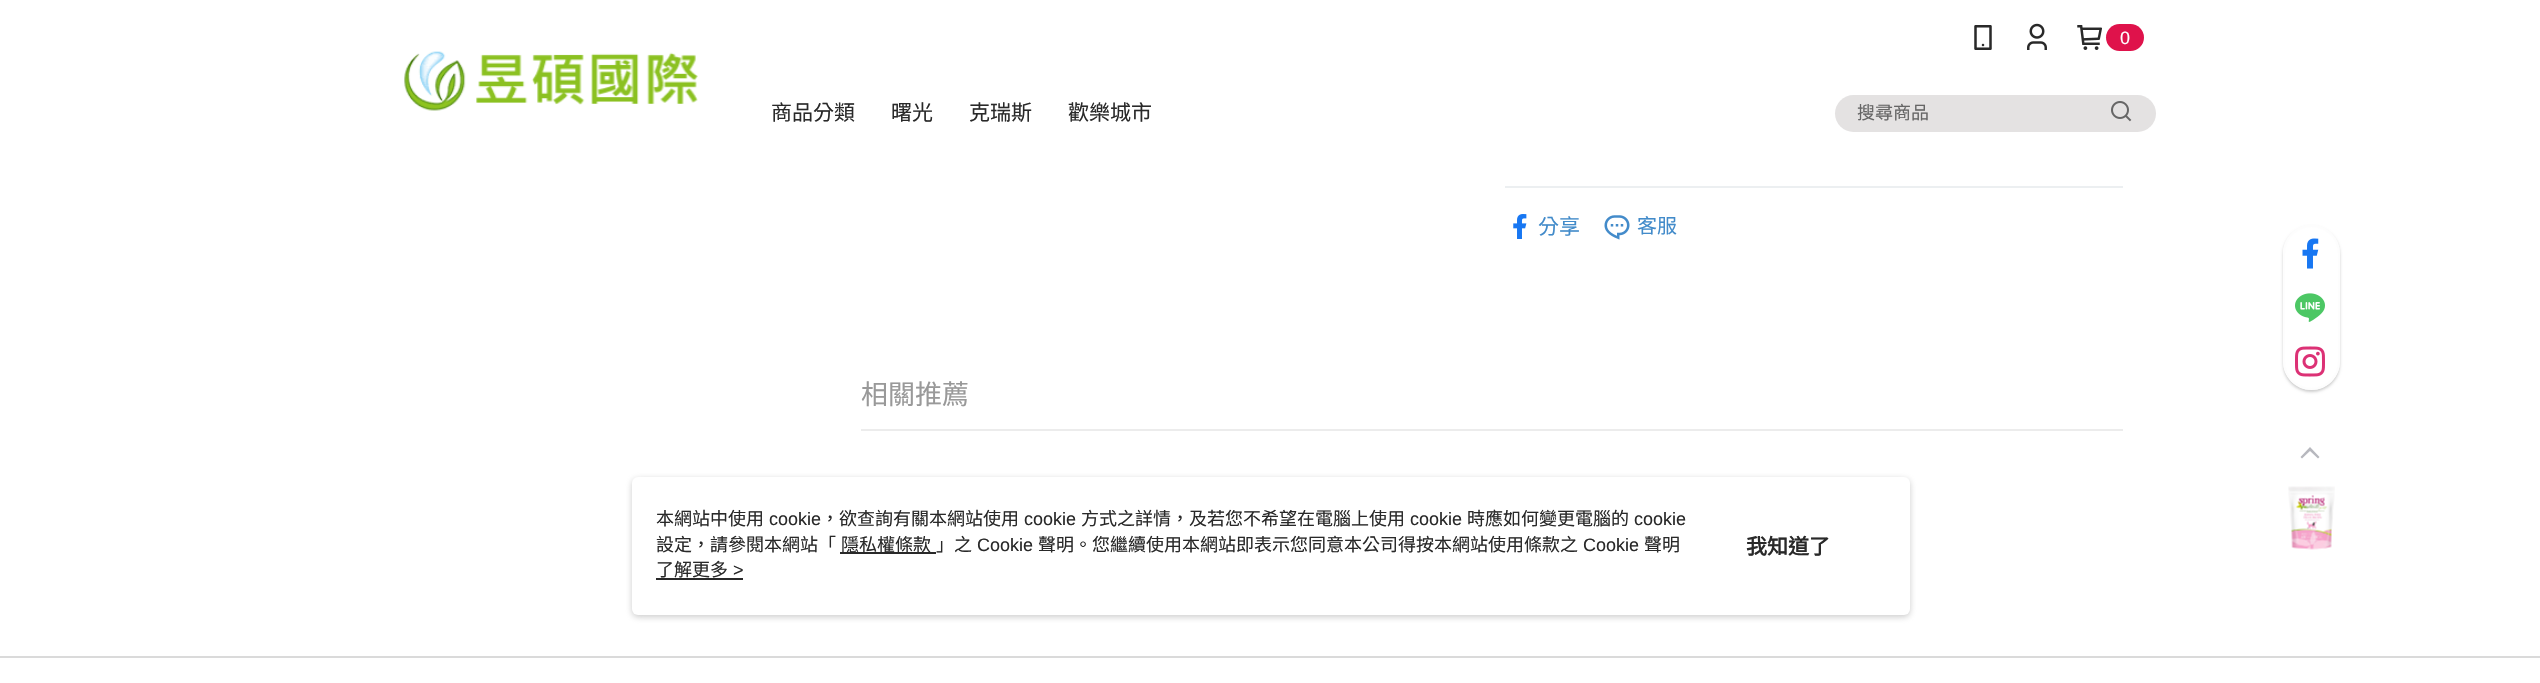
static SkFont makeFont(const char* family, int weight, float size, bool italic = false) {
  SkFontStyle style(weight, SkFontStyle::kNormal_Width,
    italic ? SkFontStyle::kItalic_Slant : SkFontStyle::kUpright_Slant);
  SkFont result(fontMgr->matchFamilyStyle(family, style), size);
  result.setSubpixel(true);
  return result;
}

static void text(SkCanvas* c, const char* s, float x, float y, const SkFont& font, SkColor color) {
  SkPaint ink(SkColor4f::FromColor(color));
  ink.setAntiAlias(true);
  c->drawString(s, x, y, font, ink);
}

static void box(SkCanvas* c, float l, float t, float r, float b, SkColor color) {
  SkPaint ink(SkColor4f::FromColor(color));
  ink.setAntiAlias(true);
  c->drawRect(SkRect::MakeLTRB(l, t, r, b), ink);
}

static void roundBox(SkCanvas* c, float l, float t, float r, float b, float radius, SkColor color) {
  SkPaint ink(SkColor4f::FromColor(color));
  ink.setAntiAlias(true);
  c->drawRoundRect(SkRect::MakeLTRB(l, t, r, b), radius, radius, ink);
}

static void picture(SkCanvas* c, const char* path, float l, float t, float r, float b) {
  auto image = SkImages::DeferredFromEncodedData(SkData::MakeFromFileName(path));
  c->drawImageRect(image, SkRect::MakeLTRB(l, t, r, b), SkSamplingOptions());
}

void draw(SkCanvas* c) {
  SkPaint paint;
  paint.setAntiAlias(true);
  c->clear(0xffffffff);
  picture(c, "img_01.png", 404, 51, 698, 111);
  picture(c, "img_02.png", 1974, 25, 1992, 50);
  picture(c, "img_03.png", 2027, 23, 2047, 50);
  picture(c, "img_04.png", 2077, 25, 2102, 50);
  roundBox(c, 2106, 24, 2144, 51, 13.5f, 0xffdf124b);
  SkFont face1 = makeFont("Liberation Sans", 400, 18);
  text(c, "0", 2120, 44, face1, 0xffffffff);
  SkFont face2 = makeFont("Noto Sans CJK TC", 400, 21);
  text(c, "商品分類", 771, 120, face2, 0xff292929);
  text(c, "曙光", 891, 120, face2, 0xff292929);
  text(c, "克瑞斯", 969, 120, face2, 0xff292929);
  text(c, "歡樂城市", 1068, 120, face2, 0xff292929);
  roundBox(c, 1835, 95, 2156, 132, 18.5f, 0xffe4e2e2);
  SkFont face3 = makeFont("Noto Sans CJK TC", 400, 18);
  text(c, "搜尋商品", 1857, 119, face3, 0xff666666);
  picture(c, "img_05.png", 2111, 101, 2132, 122);
  box(c, 1505, 186, 2123, 188, 0xffeceff1);
  picture(c, "img_06.png", 1513, 214, 1527, 239);
  text(c, "分享", 1538, 234, face2, 0xff428bca);
  picture(c, "img_07.png", 1604, 215, 1630, 240);
  SkFont face4 = makeFont("Noto Sans CJK TC", 400, 20);
  text(c, "客服", 1637, 233, face4, 0xff428bca);
  box(c, 861, 429, 2123, 431, 0xffececec);
  SkFont face5 = makeFont("Noto Sans CJK TC", 400, 27);
  text(c, "相關推薦", 861, 404, face5, 0xff999999);
  c->save();
  c->clipPath(SkPathBuilder(SkPathFillType::kEvenOdd).moveTo(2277, 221).lineTo(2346, 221).lineTo(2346, 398).lineTo(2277, 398).close().moveTo(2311.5f, 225).cubicTo(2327, 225, 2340, 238, 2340, 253.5f).lineTo(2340, 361.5f).cubicTo(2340, 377, 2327, 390, 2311.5f, 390).cubicTo(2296, 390, 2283, 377, 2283, 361.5f).lineTo(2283, 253.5f).cubicTo(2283, 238, 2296, 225, 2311.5f, 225).close().detach(), true);
  paint.setColor(0x33000000);
  paint.setMaskFilter(SkMaskFilter::MakeBlur(kNormal_SkBlurStyle, 1.5f));
  c->drawRoundRect(SkRect::MakeLTRB(2283, 227, 2340, 392), 28.5f, 28.5f, paint);
  paint.setMaskFilter(nullptr);
  c->restore();
  paint.setColor(0xe6ffffff);
  c->drawRoundRect(SkRect::MakeLTRB(2284, 226, 2339, 389), 27.5f, 27.5f, paint);
  paint.setStyle(SkPaint::kStroke_Style);
  paint.setStrokeWidth(2);
  paint.setColor(0xfffdfdfd);
  c->drawRoundRect(SkRect::MakeLTRB(2284, 226, 2339, 389), 27.5f, 27.5f, paint);
  picture(c, "img_08.png", 2302, 238, 2319, 269);
  picture(c, "img_09.png", 2295, 293, 2325, 322);
  picture(c, "img_10.png", 2295, 346, 2325, 377);
  paint.setStyle(SkPaint::kFill_Style);
  paint.setColor(0xffb7b8be);
  c->drawPath(SkPathBuilder().moveTo(2318, 458.5f).lineTo(2319.5f, 457).lineTo(2310, 447).lineTo(2300.5f, 457).lineTo(2302, 458.5f).lineTo(2310, 451).close().detach(), paint);
  picture(c, "img_11.png", 2288, 486, 2335, 550);
  box(c, 0, 656, 2540, 658, 0xffdadada);
  paint.setColor(0x80979797);
  paint.setMaskFilter(SkMaskFilter::MakeBlur(kNormal_SkBlurStyle, 3));
  c->drawRoundRect(SkRect::MakeLTRB(632, 479, 1910, 617), 6, 6, paint);
  paint.setMaskFilter(nullptr);
  roundBox(c, 632, 477, 1910, 615, 6, 0xffffffff);
  text(c, "本網站中使用", 656, 525, face3, 0xff292929);
  text(c, "cookie", 769, 525, face1, 0xff292929);
  text(c, "，欲查詢有關本網站使用", 821, 525, face3, 0xff292929);
  text(c, "cookie", 1024, 525, face1, 0xff292929);
  text(c, "方式之詳情，及若您不希望在電腦上使用", 1081, 525, face3, 0xff292929);
  text(c, "cookie", 1410, 525, face1, 0xff292929);
  text(c, "時應如何變更電腦的", 1467, 525, face3, 0xff292929);
  text(c, "cookie", 1634, 525, face1, 0xff292929);
  text(c, "設定，請參閱本網站「", 656, 551, face3, 0xff292929);
  box(c, 840, 552, 936, 554, 0xff292929);
  text(c, "隱私權條款", 841, 551, face3, 0xff292929);
  text(c, "」之", 936, 551, face3, 0xff292929);
  text(c, "Cookie", 977, 551, face1, 0xff292929);
  text(c, "聲明。您繼續使用本網站即表示您同意本公司得按本網站使用條款之", 1038, 551, face3, 0xff292929);
  text(c, "Cookie", 1583, 551, face1, 0xff292929);
  text(c, "聲明", 1644, 551, face3, 0xff292929);
  text(c, "了解更多", 656, 576, face3, 0xff292929);
  text(c, ">", 733, 576, face1, 0xff292929);
  box(c, 656, 578, 743, 580, 0xff292929);
  SkFont face6 = makeFont("Noto Sans CJK TC", 700, 21);
  text(c, "我知道了", 1746, 554, face6, 0xff292929);
}
